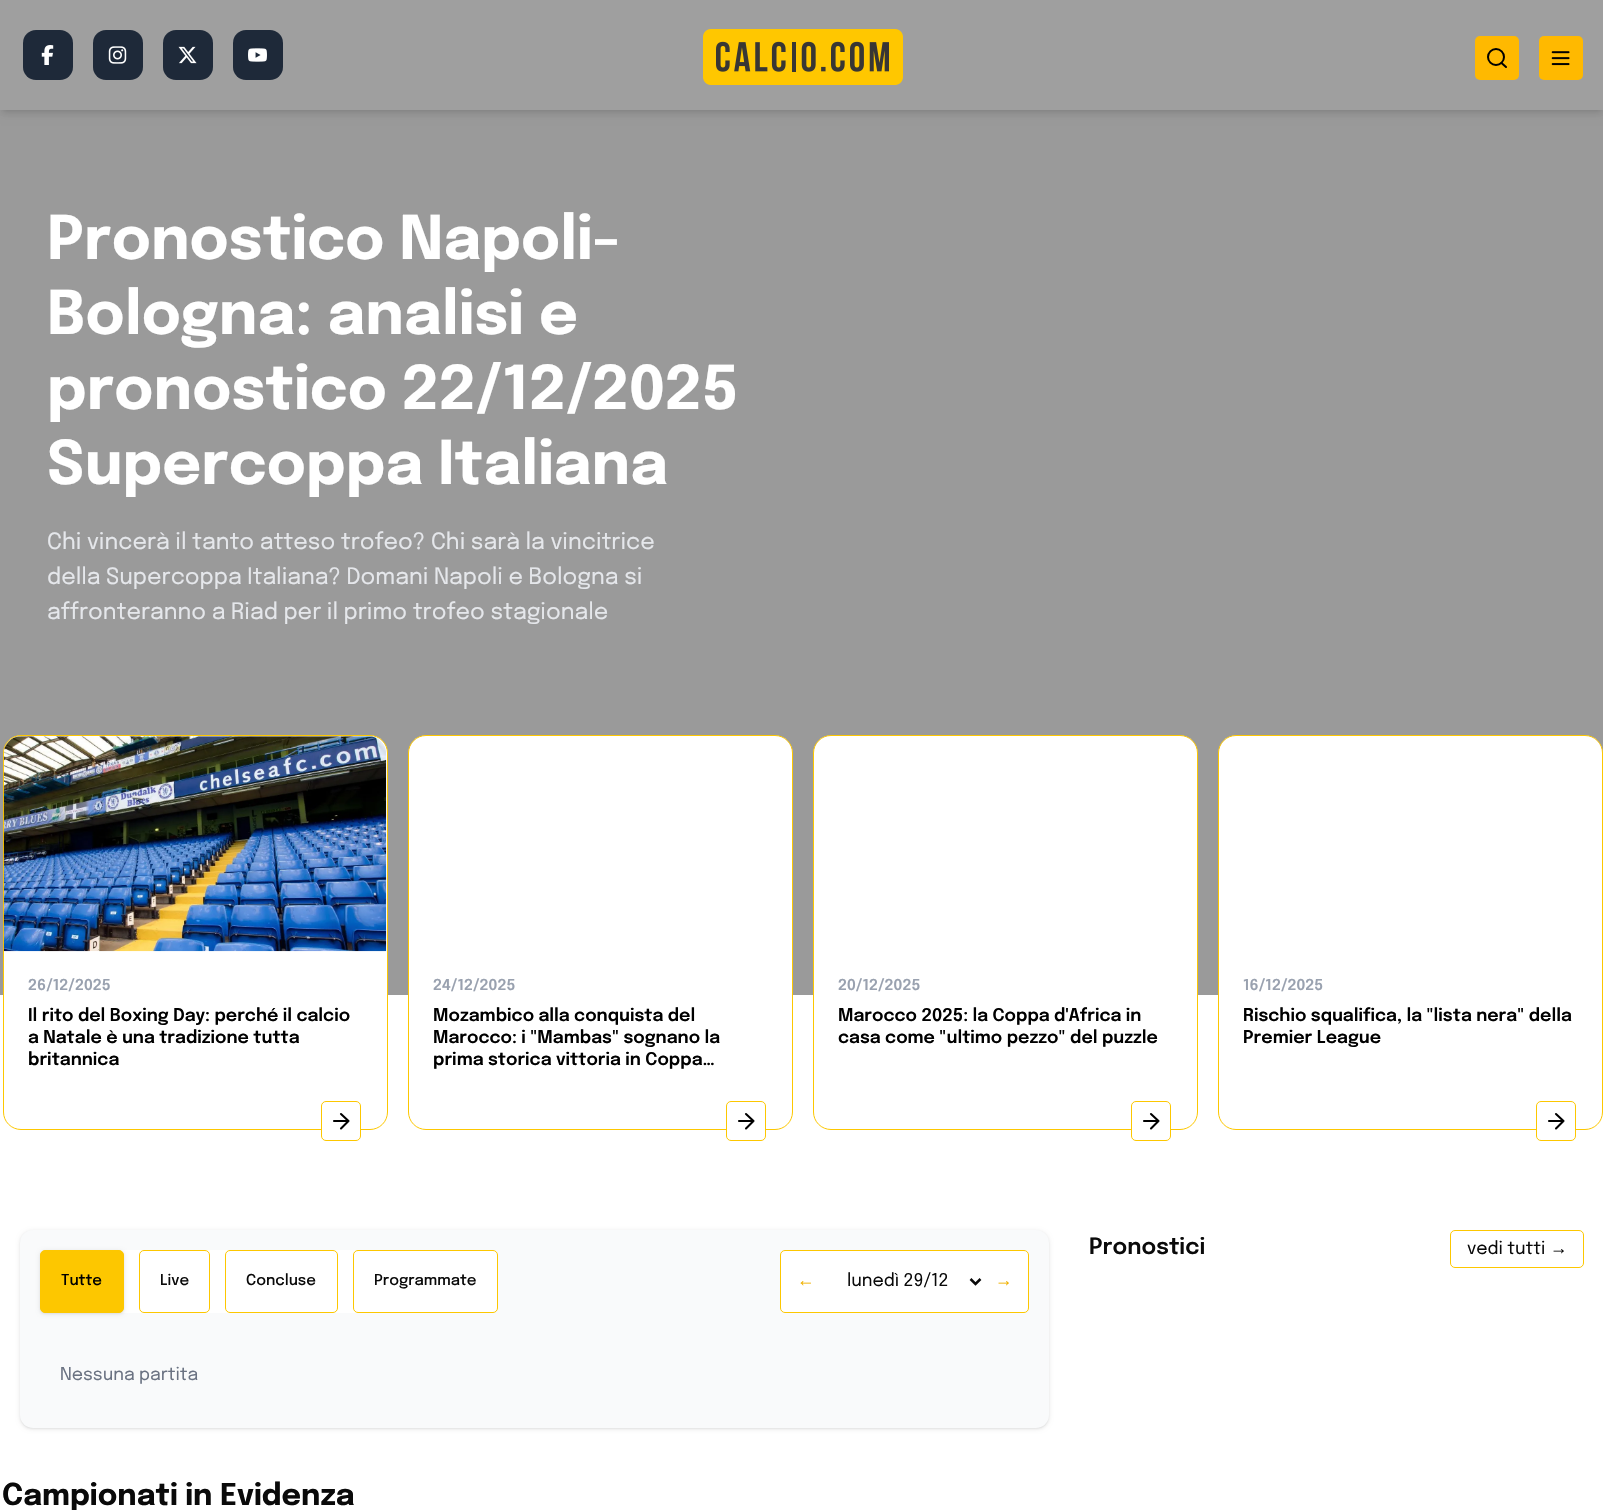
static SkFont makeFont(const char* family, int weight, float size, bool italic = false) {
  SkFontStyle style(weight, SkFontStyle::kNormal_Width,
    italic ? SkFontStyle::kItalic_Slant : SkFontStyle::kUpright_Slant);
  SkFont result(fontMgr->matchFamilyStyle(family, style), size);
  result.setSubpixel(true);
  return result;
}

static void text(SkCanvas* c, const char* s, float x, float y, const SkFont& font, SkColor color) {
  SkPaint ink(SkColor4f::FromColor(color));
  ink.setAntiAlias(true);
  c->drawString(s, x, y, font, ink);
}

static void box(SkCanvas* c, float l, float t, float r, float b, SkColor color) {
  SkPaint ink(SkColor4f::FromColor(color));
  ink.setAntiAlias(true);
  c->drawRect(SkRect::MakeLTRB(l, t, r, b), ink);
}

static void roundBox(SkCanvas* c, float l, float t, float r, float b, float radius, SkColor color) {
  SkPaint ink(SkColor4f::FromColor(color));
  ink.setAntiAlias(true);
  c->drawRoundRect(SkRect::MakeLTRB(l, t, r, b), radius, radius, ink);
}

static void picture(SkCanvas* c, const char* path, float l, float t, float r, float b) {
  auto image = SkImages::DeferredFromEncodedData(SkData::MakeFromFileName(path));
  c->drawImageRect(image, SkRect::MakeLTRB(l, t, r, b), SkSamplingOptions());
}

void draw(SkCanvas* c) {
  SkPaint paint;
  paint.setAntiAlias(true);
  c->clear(0xffffffff);
  box(c, 0, 110, 1603, 995, 0xff9a9a9a);
  paint.setColor(0x1a000000);
  paint.setMaskFilter(SkMaskFilter::MakeBlur(kNormal_SkBlurStyle, 2.5f));
  c->drawRect(SkRect::MakeLTRB(3, 5, 1601, 110), paint);
  paint.setMaskFilter(nullptr);
  paint.setMaskFilter(SkMaskFilter::MakeBlur(kNormal_SkBlurStyle, 4));
  c->drawRect(SkRect::MakeLTRB(1, 6, 1603, 114), paint);
  paint.setMaskFilter(nullptr);
  box(c, 0, 0, 1603, 110, 0xff9f9f9f);
  roundBox(c, 23, 30, 73, 80, 13, 0xff1e2939);
  picture(c, "img_01.png", 41, 45, 54, 65);
  roundBox(c, 93, 30, 143, 80, 13, 0xff1e2939);
  picture(c, "img_02.png", 108, 46, 127, 64);
  roundBox(c, 163, 30, 213, 80, 13, 0xff1e2939);
  picture(c, "img_03.png", 178, 46, 197, 64);
  roundBox(c, 233, 30, 283, 80, 13, 0xff1e2939);
  picture(c, "img_04.png", 248, 48, 267, 62);
  picture(c, "img_05.png", 703, 29, 903, 85);
  roundBox(c, 1475, 36, 1519, 80, 5, 0xffffb900);
  paint.setStyle(SkPaint::kStroke_Style);
  paint.setStrokeWidth(2);
  paint.setColor(0xff000000);
  c->drawCircle(1496, 57, 8, paint);
  paint.setStrokeCap(SkPaint::kRound_Cap);
  paint.setStrokeJoin(SkPaint::kRound_Join);
  c->drawPath(SkPathBuilder().moveTo(1506, 67).lineTo(1501.5f, 63).detach(), paint);
  roundBox(c, 1539, 36, 1583, 80, 5, 0xffffb900);
  picture(c, "img_06.png", 1551, 51, 1570, 66);
  SkFont face1 = makeFont("Epilogue", 700, 60);
  text(c, "Pronostico Napoli-", 47, 259, face1, 0xffffffff);
  text(c, "Bologna: analisi e", 47, 334, face1, 0xffffffff);
  text(c, "pronostico 22/12/2025", 47, 409, face1, 0xffffffff);
  text(c, "Supercoppa Italiana", 47, 484, face1, 0xffffffff);
  SkFont face2 = makeFont("Epilogue", 400, 22.5f);
  text(c, "Chi vincerà il tanto atteso trofeo? Chi sarà la vincitrice", 47, 549, face2, 0xffe5e7eb);
  text(c, "della Supercoppa Italiana? Domani Napoli e Bologna si", 47, 584, face2, 0xffe5e7eb);
  text(c, "affronteranno a Riad per il primo trofeo stagionale", 47, 619, face2, 0xffe5e7eb);
  paint.setStyle(SkPaint::kFill_Style);
  paint.setColor(0xffffffff);
  c->drawRoundRect(SkRect::MakeLTRB(3.5f, 735.5f, 387.5f, 1129.5f), 17.5f, 17.5f, paint);
  paint.setStyle(SkPaint::kStroke_Style);
  paint.setStrokeWidth(1);
  paint.setStrokeCap(SkPaint::kButt_Cap);
  paint.setStrokeJoin(SkPaint::kMiter_Join);
  paint.setColor(0xfffdc700);
  c->drawRoundRect(SkRect::MakeLTRB(3.5f, 735.5f, 387.5f, 1129.5f), 17.5f, 17.5f, paint);
  picture(c, "img_07.png", 3, 736, 387, 952);
  SkFont face3 = makeFont("Epilogue", 600, 15);
  text(c, "26/12/2025", 28, 990, face3, 0xff99a1af);
  SkFont face4 = makeFont("Epilogue", 600, 17.5f);
  text(c, "Il rito del Boxing Day: perché il calcio", 28, 1021, face4, 0xff000000);
  text(c, "a Natale è una tradizione tutta", 28, 1043, face4, 0xff000000);
  text(c, "britannica", 28, 1065, face4, 0xff000000);
  paint.setStyle(SkPaint::kFill_Style);
  paint.setColor(0xffffffff);
  c->drawRoundRect(SkRect::MakeLTRB(321.5f, 1101.5f, 360.5f, 1140.5f), 4.5f, 4.5f, paint);
  paint.setStyle(SkPaint::kStroke_Style);
  paint.setColor(0xfffdc700);
  c->drawRoundRect(SkRect::MakeLTRB(321.5f, 1101.5f, 360.5f, 1140.5f), 4.5f, 4.5f, paint);
  paint.setStrokeWidth(2.1f);
  paint.setStrokeCap(SkPaint::kRound_Cap);
  paint.setStrokeJoin(SkPaint::kRound_Join);
  paint.setColor(0xff000000);
  c->drawPath(SkPathBuilder().moveTo(334, 1121).lineTo(348.5f, 1121).moveTo(341, 1114).lineTo(348.5f, 1121).lineTo(341, 1128.5f).detach(), paint);
  paint.setStyle(SkPaint::kFill_Style);
  paint.setColor(0xffffffff);
  c->drawRoundRect(SkRect::MakeLTRB(408.5f, 735.5f, 792.5f, 1129.5f), 17.5f, 17.5f, paint);
  paint.setStyle(SkPaint::kStroke_Style);
  paint.setStrokeWidth(1);
  paint.setStrokeCap(SkPaint::kButt_Cap);
  paint.setStrokeJoin(SkPaint::kMiter_Join);
  paint.setColor(0xfffdc700);
  c->drawRoundRect(SkRect::MakeLTRB(408.5f, 735.5f, 792.5f, 1129.5f), 17.5f, 17.5f, paint);
  text(c, "24/12/2025", 433, 990, face3, 0xff99a1af);
  text(c, "Mozambico alla conquista del", 433, 1021, face4, 0xff000000);
  text(c, "Marocco: i \"Mambas\" sognano la", 433, 1043, face4, 0xff000000);
  text(c, "prima storica vittoria in Coppa…", 433, 1065, face4, 0xff000000);
  paint.setStyle(SkPaint::kFill_Style);
  paint.setColor(0xffffffff);
  c->drawRoundRect(SkRect::MakeLTRB(726.5f, 1101.5f, 765.5f, 1140.5f), 4.5f, 4.5f, paint);
  paint.setStyle(SkPaint::kStroke_Style);
  paint.setColor(0xfffdc700);
  c->drawRoundRect(SkRect::MakeLTRB(726.5f, 1101.5f, 765.5f, 1140.5f), 4.5f, 4.5f, paint);
  paint.setStrokeWidth(2.1f);
  paint.setStrokeCap(SkPaint::kRound_Cap);
  paint.setStrokeJoin(SkPaint::kRound_Join);
  paint.setColor(0xff000000);
  c->drawPath(SkPathBuilder().moveTo(739, 1121).lineTo(753.5f, 1121).moveTo(746, 1114).lineTo(753.5f, 1121).lineTo(746, 1128.5f).detach(), paint);
  paint.setStyle(SkPaint::kFill_Style);
  paint.setColor(0xffffffff);
  c->drawRoundRect(SkRect::MakeLTRB(813.5f, 735.5f, 1197.5f, 1129.5f), 17.5f, 17.5f, paint);
  paint.setStyle(SkPaint::kStroke_Style);
  paint.setStrokeWidth(1);
  paint.setStrokeCap(SkPaint::kButt_Cap);
  paint.setStrokeJoin(SkPaint::kMiter_Join);
  paint.setColor(0xfffdc700);
  c->drawRoundRect(SkRect::MakeLTRB(813.5f, 735.5f, 1197.5f, 1129.5f), 17.5f, 17.5f, paint);
  text(c, "20/12/2025", 838, 990, face3, 0xff99a1af);
  text(c, "Marocco 2025: la Coppa d'Africa in", 838, 1021, face4, 0xff000000);
  text(c, "casa come \"ultimo pezzo\" del puzzle", 838, 1043, face4, 0xff000000);
  paint.setStyle(SkPaint::kFill_Style);
  paint.setColor(0xffffffff);
  c->drawRoundRect(SkRect::MakeLTRB(1131.5f, 1101.5f, 1170.5f, 1140.5f), 4.5f, 4.5f, paint);
  paint.setStyle(SkPaint::kStroke_Style);
  paint.setColor(0xfffdc700);
  c->drawRoundRect(SkRect::MakeLTRB(1131.5f, 1101.5f, 1170.5f, 1140.5f), 4.5f, 4.5f, paint);
  paint.setStrokeWidth(2.1f);
  paint.setStrokeCap(SkPaint::kRound_Cap);
  paint.setStrokeJoin(SkPaint::kRound_Join);
  paint.setColor(0xff000000);
  c->drawPath(SkPathBuilder().moveTo(1144, 1121).lineTo(1158.5f, 1121).moveTo(1151, 1114).lineTo(1158.5f, 1121).lineTo(1151, 1128.5f).detach(), paint);
  paint.setStyle(SkPaint::kFill_Style);
  paint.setColor(0xffffffff);
  c->drawRoundRect(SkRect::MakeLTRB(1218.5f, 735.5f, 1602.5f, 1129.5f), 17.5f, 17.5f, paint);
  paint.setStyle(SkPaint::kStroke_Style);
  paint.setStrokeWidth(1);
  paint.setStrokeCap(SkPaint::kButt_Cap);
  paint.setStrokeJoin(SkPaint::kMiter_Join);
  paint.setColor(0xfffdc700);
  c->drawRoundRect(SkRect::MakeLTRB(1218.5f, 735.5f, 1602.5f, 1129.5f), 17.5f, 17.5f, paint);
  text(c, "16/12/2025", 1243, 990, face3, 0xff99a1af);
  text(c, "Rischio squalifica, la \"lista nera\" della", 1243, 1021, face4, 0xff000000);
  text(c, "Premier League", 1243, 1043, face4, 0xff000000);
  paint.setStyle(SkPaint::kFill_Style);
  paint.setColor(0xffffffff);
  c->drawRoundRect(SkRect::MakeLTRB(1536.5f, 1101.5f, 1575.5f, 1140.5f), 4.5f, 4.5f, paint);
  paint.setStyle(SkPaint::kStroke_Style);
  paint.setColor(0xfffdc700);
  c->drawRoundRect(SkRect::MakeLTRB(1536.5f, 1101.5f, 1575.5f, 1140.5f), 4.5f, 4.5f, paint);
  paint.setStrokeWidth(2.1f);
  paint.setStrokeCap(SkPaint::kRound_Cap);
  paint.setStrokeJoin(SkPaint::kRound_Join);
  paint.setColor(0xff000000);
  c->drawPath(SkPathBuilder().moveTo(1549, 1121).lineTo(1563.5f, 1121).moveTo(1556, 1114).lineTo(1563.5f, 1121).lineTo(1556, 1128.5f).detach(), paint);
  SkFont face5 = makeFont("Epilogue", 600, 22.5f);
  text(c, "Pronostici", 1089, 1254, face5, 0xff0a0a0a);
  paint.setStrokeWidth(1);
  paint.setStrokeCap(SkPaint::kButt_Cap);
  paint.setStrokeJoin(SkPaint::kMiter_Join);
  paint.setColor(0xfffdc700);
  c->drawRoundRect(SkRect::MakeLTRB(1450.5f, 1230.5f, 1583.5f, 1267.5f), 4.5f, 4.5f, paint);
  SkFont face6 = makeFont("Epilogue", 400, 17.5f);
  text(c, "vedi tutti", 1467, 1254, face6, 0xff0a0a0a);
  SkFont face7 = makeFont("Liberation Serif", 400, 17.5f);
  text(c, "→", 1550, 1254, face7, 0xff0a0a0a);
  paint.setStyle(SkPaint::kFill_Style);
  paint.setColor(0x1a000000);
  paint.setMaskFilter(SkMaskFilter::MakeBlur(kNormal_SkBlurStyle, 1));
  c->drawRoundRect(SkRect::MakeLTRB(21, 1233, 1048, 1428), 11, 11, paint);
  paint.setMaskFilter(nullptr);
  paint.setMaskFilter(SkMaskFilter::MakeBlur(kNormal_SkBlurStyle, 2));
  c->drawRoundRect(SkRect::MakeLTRB(20, 1231, 1049, 1429), 13, 13, paint);
  paint.setMaskFilter(nullptr);
  roundBox(c, 20, 1230, 1049, 1428, 13, 0xfff9fafb);
  roundBox(c, 40, 1250, 498, 1313, 13, 0xffffffff);
  paint.setMaskFilter(SkMaskFilter::MakeBlur(kNormal_SkBlurStyle, 1));
  c->drawRoundRect(SkRect::MakeLTRB(41, 1253, 123, 1313), 4, 4, paint);
  paint.setMaskFilter(nullptr);
  paint.setMaskFilter(SkMaskFilter::MakeBlur(kNormal_SkBlurStyle, 2));
  c->drawRoundRect(SkRect::MakeLTRB(40, 1251, 124, 1314), 5, 5, paint);
  paint.setMaskFilter(nullptr);
  paint.setColor(0xfffdc700);
  c->drawRoundRect(SkRect::MakeLTRB(40.5f, 1250.5f, 123.5f, 1312.5f), 4.5f, 4.5f, paint);
  paint.setStyle(SkPaint::kStroke_Style);
  c->drawRoundRect(SkRect::MakeLTRB(40.5f, 1250.5f, 123.5f, 1312.5f), 4.5f, 4.5f, paint);
  SkFont face8 = makeFont("Epilogue", 500, 15);
  text(c, "Tutte", 61, 1285, face8, 0xff000000);
  c->drawRoundRect(SkRect::MakeLTRB(139.5f, 1250.5f, 209.5f, 1312.5f), 4.5f, 4.5f, paint);
  text(c, "Live", 160, 1285, face8, 0xff0a0a0a);
  c->drawRoundRect(SkRect::MakeLTRB(225.5f, 1250.5f, 337.5f, 1312.5f), 4.5f, 4.5f, paint);
  text(c, "Concluse", 246, 1285, face8, 0xff0a0a0a);
  paint.setStyle(SkPaint::kFill_Style);
  paint.setColor(0xffffffff);
  c->drawRoundRect(SkRect::MakeLTRB(353.5f, 1250.5f, 497.5f, 1312.5f), 4.5f, 4.5f, paint);
  paint.setStyle(SkPaint::kStroke_Style);
  paint.setColor(0xfffdc700);
  c->drawRoundRect(SkRect::MakeLTRB(353.5f, 1250.5f, 497.5f, 1312.5f), 4.5f, 4.5f, paint);
  text(c, "Programmate", 374, 1285, face8, 0xff0a0a0a);
  paint.setStyle(SkPaint::kFill_Style);
  paint.setColor(0xffffffff);
  c->drawRoundRect(SkRect::MakeLTRB(780.5f, 1250.5f, 1028.5f, 1312.5f), 4.5f, 4.5f, paint);
  paint.setStyle(SkPaint::kStroke_Style);
  paint.setColor(0xfffdc700);
  c->drawRoundRect(SkRect::MakeLTRB(780.5f, 1250.5f, 1028.5f, 1312.5f), 4.5f, 4.5f, paint);
  SkFont face9 = makeFont("Liberation Serif", 700, 17.5f);
  text(c, "←", 797, 1286, face9, 0xfff0b100);
  paint.setStrokeWidth(2.5f);
  paint.setColor(0xff0a0a0a);
  c->drawPath(SkPathBuilder().moveTo(970.5f, 1279).lineTo(975.5f, 1284).lineTo(980.5f, 1279).detach(), paint);
  text(c, "lunedì 29/12", 847, 1286, face6, 0xff0a0a0a);
  text(c, "→", 995, 1286, face9, 0xfff0b100);
  text(c, "Nessuna partita", 60, 1380, face6, 0xff6a7282);
  SkFont face10 = makeFont("Epilogue", 700, 30);
  text(c, "Campionati in Evidenza", 2, 1505, face10, 0xff0a0a0a);
}
